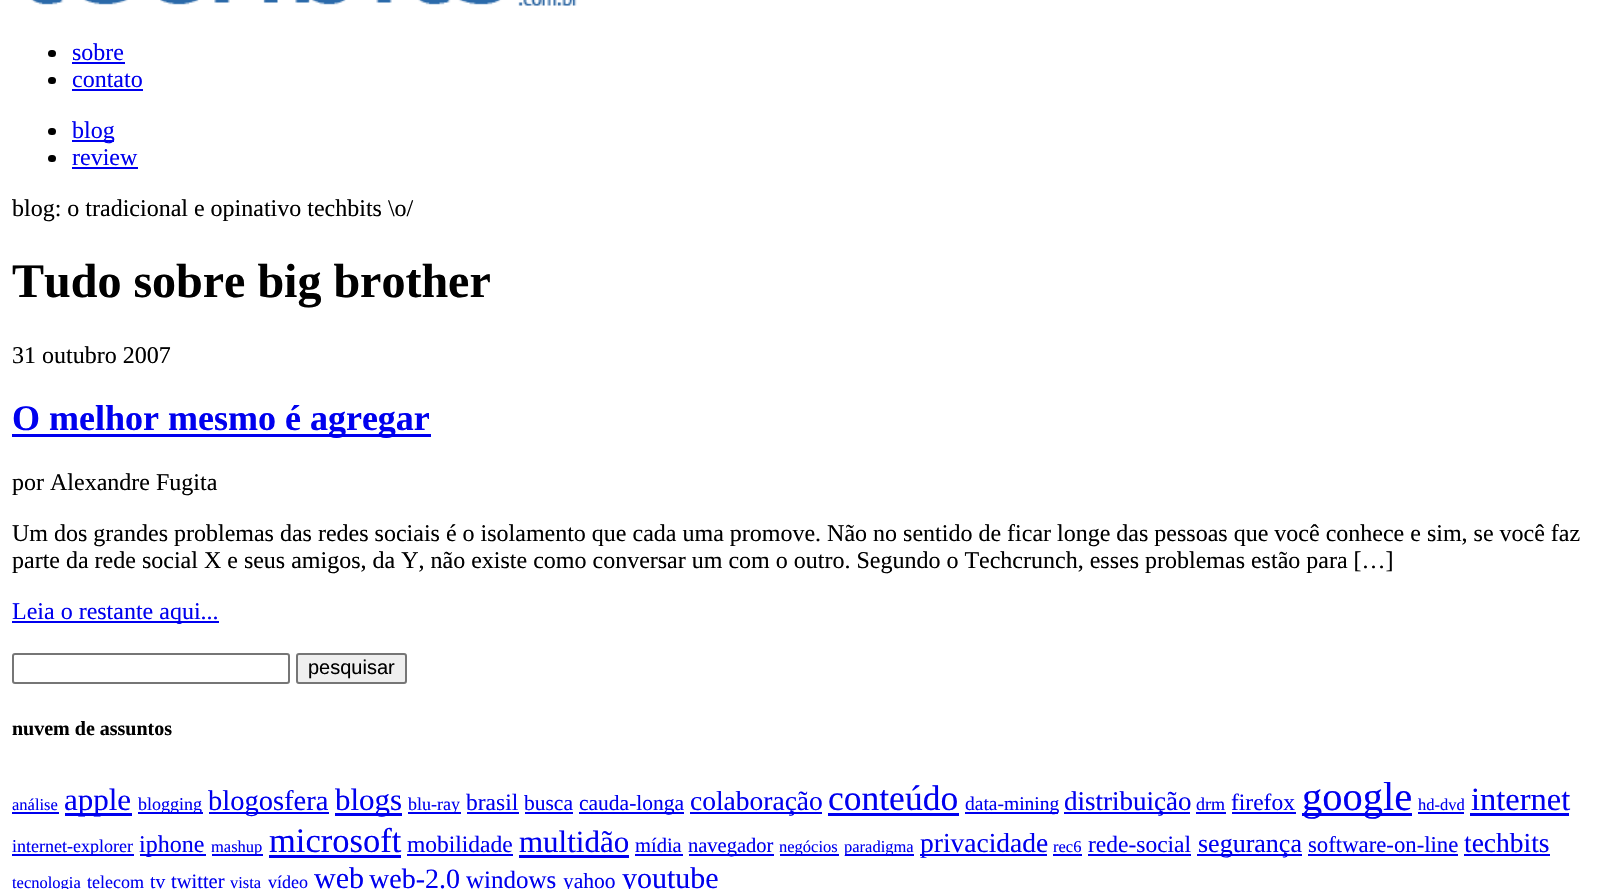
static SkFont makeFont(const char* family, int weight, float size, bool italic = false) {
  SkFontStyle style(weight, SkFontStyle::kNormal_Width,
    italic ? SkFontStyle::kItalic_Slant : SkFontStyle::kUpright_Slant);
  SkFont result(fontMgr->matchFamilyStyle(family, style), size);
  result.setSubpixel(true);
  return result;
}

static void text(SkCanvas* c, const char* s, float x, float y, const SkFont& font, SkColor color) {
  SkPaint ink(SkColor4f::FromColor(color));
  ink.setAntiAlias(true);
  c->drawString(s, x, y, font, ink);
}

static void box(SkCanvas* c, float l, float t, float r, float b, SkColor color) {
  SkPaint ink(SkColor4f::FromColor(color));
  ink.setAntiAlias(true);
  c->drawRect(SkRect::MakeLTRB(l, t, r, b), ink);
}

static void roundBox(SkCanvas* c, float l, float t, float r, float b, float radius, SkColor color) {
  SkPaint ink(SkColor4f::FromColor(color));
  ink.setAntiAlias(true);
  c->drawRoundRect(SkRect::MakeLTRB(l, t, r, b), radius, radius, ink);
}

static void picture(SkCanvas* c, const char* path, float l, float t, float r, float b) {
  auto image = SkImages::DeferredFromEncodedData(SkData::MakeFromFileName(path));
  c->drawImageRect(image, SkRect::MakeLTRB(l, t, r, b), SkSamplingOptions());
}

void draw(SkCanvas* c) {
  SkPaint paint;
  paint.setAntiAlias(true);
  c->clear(0xffffffff);
  picture(c, "img_01.png", 31, 0, 577, 6);
  roundBox(c, 48, 50, 56, 57, 3.5f, 0xff000000);
  SkFont face1 = makeFont("Liberation Serif", 400, 24);
  text(c, "sobre", 72, 60, face1, 0xff0000ee);
  box(c, 72, 62, 125, 64, 0xff0000ee);
  roundBox(c, 48, 77, 56, 84, 3.5f, 0xff000000);
  text(c, "contato", 72, 87, face1, 0xff0000ee);
  box(c, 72, 89, 143, 91, 0xff0000ee);
  roundBox(c, 48, 128, 56, 135, 3.5f, 0xff000000);
  box(c, 72, 140, 114, 142, 0xff0000ee);
  text(c, "blog", 72, 138, face1, 0xff0000ee);
  roundBox(c, 48, 155, 56, 162, 3.5f, 0xff000000);
  text(c, "review", 72, 165, face1, 0xff0000ee);
  box(c, 72, 167, 138, 169, 0xff0000ee);
  text(c, "blog: o tradicional e opinativo techbits \\o/", 12, 216, face1, 0xff000000);
  SkFont face2 = makeFont("Liberation Serif", 700, 48);
  text(c, "Tudo sobre big brother", 12, 297, face2, 0xff000000);
  text(c, "31 outubro 2007", 12, 363, face1, 0xff000000);
  box(c, 12, 434, 431, 437, 0xff0000ee);
  SkFont face3 = makeFont("Liberation Serif", 700, 36);
  text(c, "O melhor mesmo é agregar", 12, 430, face3, 0xff0000ee);
  text(c, "por Alexandre Fugita", 12, 490, face1, 0xff000000);
  text(c, "Um dos grandes problemas das redes sociais é o isolamento que cada uma promove. Não no sentido de ficar longe das pessoas que você conhece e sim, se você faz", 12, 541, face1, 0xff000000);
  text(c, "parte da rede social X e seus amigos, da Y, não existe como conversar um com o outro. Segundo o Techcrunch, esses problemas estão para […]", 12, 568, face1, 0xff000000);
  box(c, 12, 621, 219, 623, 0xff0000ee);
  text(c, "Leia o restante aqui...", 12, 619, face1, 0xff0000ee);
  paint.setStyle(SkPaint::kStroke_Style);
  paint.setStrokeWidth(2);
  paint.setColor(0xff767676);
  c->drawRoundRect(SkRect::MakeLTRB(13, 654, 289, 683), 2, 2, paint);
  paint.setStyle(SkPaint::kFill_Style);
  paint.setColor(0xffefefef);
  c->drawRoundRect(SkRect::MakeLTRB(297, 654, 406, 683), 2, 2, paint);
  paint.setStyle(SkPaint::kStroke_Style);
  paint.setColor(0xff767676);
  c->drawRoundRect(SkRect::MakeLTRB(297, 654, 406, 683), 2, 2, paint);
  SkFont face4 = makeFont("Liberation Sans", 400, 20);
  text(c, "pesquisar", 308, 674, face4, 0xff000000);
  SkFont face5 = makeFont("Liberation Serif", 700, 20);
  text(c, "nuvem de assuntos", 12, 735, face5, 0xff000000);
  SkFont face6 = makeFont("Liberation Serif", 400, 16.5f);
  text(c, "análise", 12, 810, face6, 0xff0000ee);
  box(c, 12, 812, 59, 814, 0xff0000ee);
  box(c, 65, 813, 132, 816, 0xff0000ee);
  SkFont face7 = makeFont("Liberation Serif", 400, 31);
  text(c, "apple", 64, 810, face7, 0xff0000ee);
  box(c, 138, 812, 203, 814, 0xff0000ee);
  SkFont face8 = makeFont("Liberation Serif", 400, 18);
  text(c, "blogging", 138, 810, face8, 0xff0000ee);
  box(c, 209, 812, 329, 814, 0xff0000ee);
  SkFont face9 = makeFont("Liberation Serif", 400, 28.5f);
  text(c, "blogosfera", 208, 810, face9, 0xff0000ee);
  box(c, 335, 813, 402, 816, 0xff0000ee);
  text(c, "blogs", 335, 810, face7, 0xff0000ee);
  box(c, 408, 812, 461, 814, 0xff0000ee);
  text(c, "blu-ray", 408, 810, face8, 0xff0000ee);
  SkFont face10 = makeFont("Liberation Serif", 400, 23.5f);
  text(c, "brasil", 466, 810, face10, 0xff0000ee);
  box(c, 467, 812, 519, 814, 0xff0000ee);
  SkFont face11 = makeFont("Liberation Serif", 400, 21.5f);
  text(c, "busca", 524, 810, face11, 0xff0000ee);
  box(c, 525, 812, 573, 814, 0xff0000ee);
  box(c, 579, 812, 684, 814, 0xff0000ee);
  text(c, "cauda-longa", 579, 810, face11, 0xff0000ee);
  box(c, 690, 812, 822, 814, 0xff0000ee);
  SkFont face12 = makeFont("Liberation Serif", 400, 27.5f);
  text(c, "colaboração", 690, 810, face12, 0xff0000ee);
  SkFont face13 = makeFont("Liberation Serif", 400, 35.5f);
  text(c, "conteúdo", 828, 810, face13, 0xff0000ee);
  box(c, 828, 813, 959, 816, 0xff0000ee);
  box(c, 965, 812, 1058, 814, 0xff0000ee);
  SkFont face14 = makeFont("Liberation Serif", 400, 19.5f);
  text(c, "data-mining", 965, 810, face14, 0xff0000ee);
  box(c, 1064, 812, 1190, 814, 0xff0000ee);
  SkFont face15 = makeFont("Liberation Serif", 400, 27);
  text(c, "distribuição", 1064, 810, face15, 0xff0000ee);
  text(c, "drm", 1196, 810, face8, 0xff0000ee);
  box(c, 1196, 812, 1226, 814, 0xff0000ee);
  text(c, "firefox", 1231, 810, face10, 0xff0000ee);
  box(c, 1232, 812, 1296, 814, 0xff0000ee);
  box(c, 1302, 813, 1412, 816, 0xff0000ee);
  SkFont face16 = makeFont("Liberation Serif", 400, 40.5f);
  text(c, "google", 1302, 810, face16, 0xff0000ee);
  text(c, "hd-dvd", 1418, 810, face6, 0xff0000ee);
  box(c, 1418, 812, 1464, 814, 0xff0000ee);
  SkFont face17 = makeFont("Liberation Serif", 400, 32.5f);
  text(c, "internet", 1471, 810, face17, 0xff0000ee);
  box(c, 1470, 813, 1569, 816, 0xff0000ee);
  box(c, 12, 854, 134, 856, 0xff0000ee);
  text(c, "internet-explorer", 12, 852, face8, 0xff0000ee);
  box(c, 140, 854, 206, 856, 0xff0000ee);
  text(c, "iphone", 139, 852, face1, 0xff0000ee);
  box(c, 212, 854, 263, 856, 0xff0000ee);
  text(c, "mashup", 211, 852, face6, 0xff0000ee);
  SkFont face18 = makeFont("Liberation Serif", 400, 34.5f);
  text(c, "microsoft", 269, 852, face18, 0xff0000ee);
  box(c, 269, 855, 401, 858, 0xff0000ee);
  text(c, "mobilidade", 407, 852, face10, 0xff0000ee);
  box(c, 407, 854, 513, 856, 0xff0000ee);
  text(c, "multidão", 519, 852, face7, 0xff0000ee);
  box(c, 519, 855, 629, 858, 0xff0000ee);
  SkFont face19 = makeFont("Liberation Serif", 400, 20.5f);
  text(c, "mídia", 635, 852, face19, 0xff0000ee);
  box(c, 635, 854, 683, 856, 0xff0000ee);
  box(c, 689, 854, 774, 856, 0xff0000ee);
  text(c, "navegador", 688, 852, face19, 0xff0000ee);
  box(c, 780, 854, 839, 856, 0xff0000ee);
  text(c, "negócios", 779, 852, face6, 0xff0000ee);
  box(c, 845, 854, 914, 856, 0xff0000ee);
  text(c, "paradigma", 844, 852, face6, 0xff0000ee);
  box(c, 920, 854, 1047, 856, 0xff0000ee);
  text(c, "privacidade", 920, 852, face12, 0xff0000ee);
  text(c, "rec6", 1053, 852, face6, 0xff0000ee);
  box(c, 1053, 854, 1082, 856, 0xff0000ee);
  text(c, "rede-social", 1088, 852, face10, 0xff0000ee);
  box(c, 1088, 854, 1191, 856, 0xff0000ee);
  box(c, 1197, 854, 1302, 856, 0xff0000ee);
  SkFont face20 = makeFont("Liberation Serif", 400, 26);
  text(c, "segurança", 1198, 852, face20, 0xff0000ee);
  SkFont face21 = makeFont("Liberation Serif", 400, 22.75f);
  text(c, "software-on-line", 1308, 852, face21, 0xff0000ee);
  box(c, 1308, 854, 1458, 856, 0xff0000ee);
  text(c, "techbits", 1464, 852, face12, 0xff0000ee);
  box(c, 1464, 854, 1550, 856, 0xff0000ee);
  text(c, "tecnologia", 12, 888, face6, 0xff0000ee);
  text(c, "telecom", 87, 888, face8, 0xff0000ee);
  text(c, "tv", 150, 888, face14, 0xff0000ee);
  text(c, "twitter", 171, 888, face19, 0xff0000ee);
  text(c, "vista", 230, 888, face6, 0xff0000ee);
  text(c, "vídeo", 268, 888, face8, 0xff0000ee);
  SkFont face22 = makeFont("Liberation Serif", 400, 30);
  text(c, "web", 314, 888, face22, 0xff0000ee);
  SkFont face23 = makeFont("Liberation Serif", 400, 28);
  text(c, "web-2.0", 369, 888, face23, 0xff0000ee);
  SkFont face24 = makeFont("Liberation Serif", 400, 25);
  text(c, "windows", 466, 888, face24, 0xff0000ee);
  text(c, "yahoo", 563, 888, face11, 0xff0000ee);
  text(c, "youtube", 622, 888, face22, 0xff0000ee);
}
